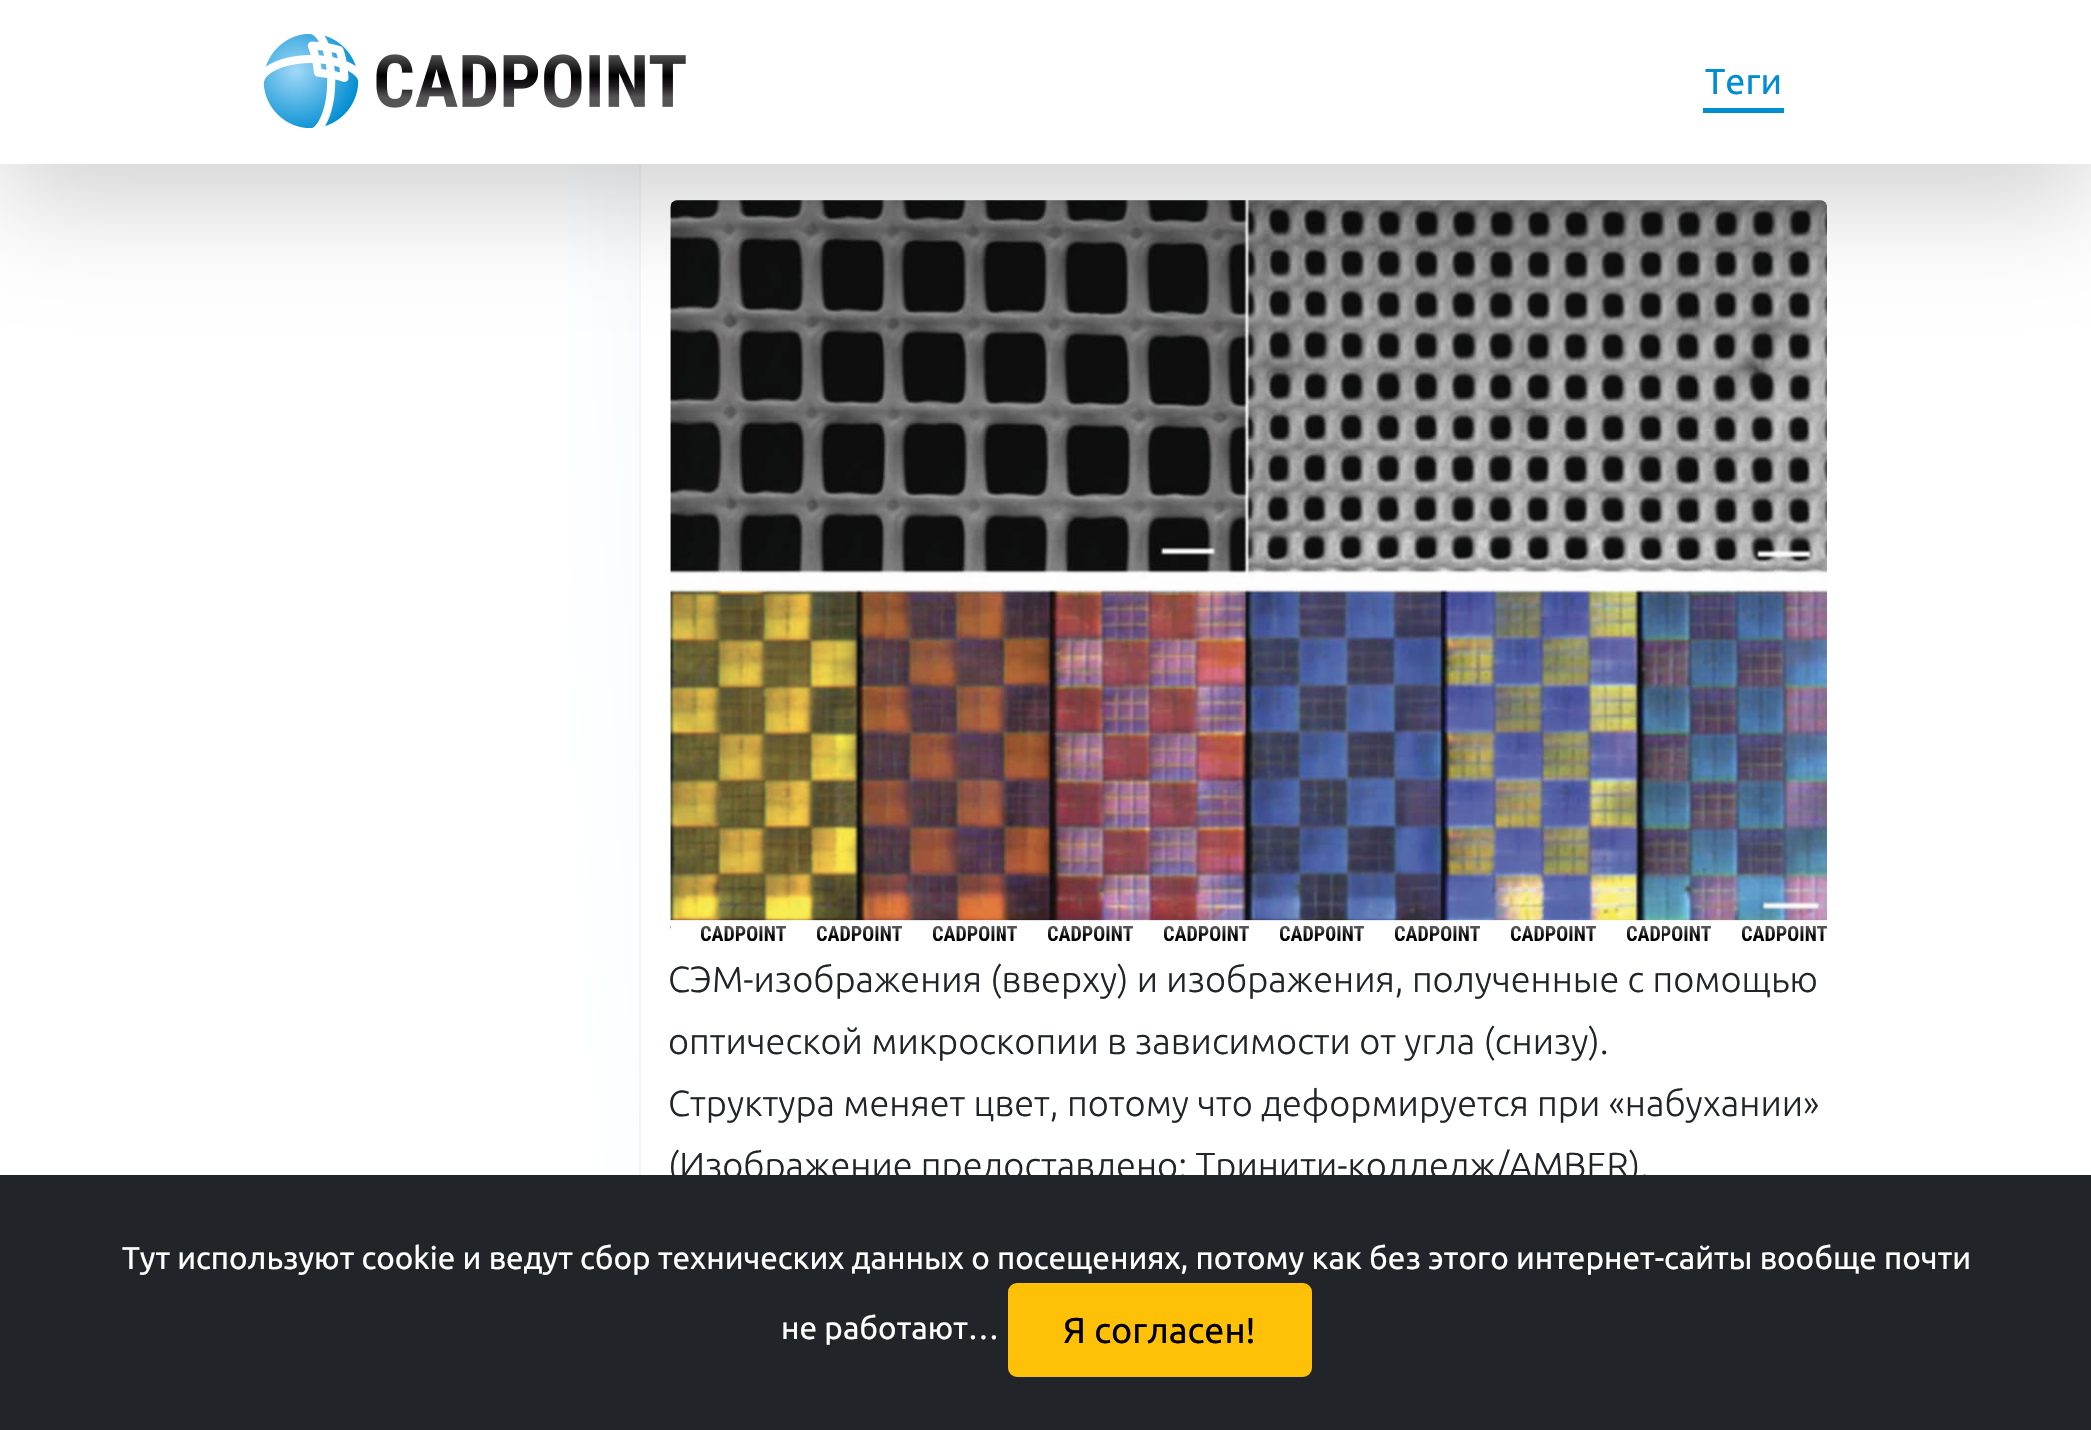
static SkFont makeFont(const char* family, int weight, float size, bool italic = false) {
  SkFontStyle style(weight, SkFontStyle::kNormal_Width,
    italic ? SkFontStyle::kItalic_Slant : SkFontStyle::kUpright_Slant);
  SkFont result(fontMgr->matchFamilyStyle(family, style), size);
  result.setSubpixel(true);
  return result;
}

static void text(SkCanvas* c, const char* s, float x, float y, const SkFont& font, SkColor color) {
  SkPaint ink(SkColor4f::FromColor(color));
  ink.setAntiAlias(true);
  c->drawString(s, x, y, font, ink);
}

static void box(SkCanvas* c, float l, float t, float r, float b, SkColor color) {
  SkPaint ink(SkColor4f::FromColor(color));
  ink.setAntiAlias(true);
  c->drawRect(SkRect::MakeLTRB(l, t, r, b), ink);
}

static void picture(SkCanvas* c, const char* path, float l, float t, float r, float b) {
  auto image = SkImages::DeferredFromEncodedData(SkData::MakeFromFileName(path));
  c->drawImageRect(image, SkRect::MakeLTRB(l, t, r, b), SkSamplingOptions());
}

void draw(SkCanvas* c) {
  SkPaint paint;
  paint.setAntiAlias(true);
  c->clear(0xffffffff);
  {
    const SkColor colors[] = {0xffe8f5fc, 0xffffffff};
    const float stops[] = {0, 0.45f};
    const SkPoint ends[] = {{839, -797}, {36, -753}};
    paint.setShader(SkGradientShader::MakeLinear(ends, colors, stops, 2, SkTileMode::kClamp));
    paint.setAlpha(255);
  }
  c->drawRect(SkRect::MakeLTRB(569, 164, 639, 1175), paint);
  paint.setShader(nullptr);
  paint.setColor(0xfff5f5f5);
  c->drawPath(SkPathBuilder(SkPathFillType::kEvenOdd).moveTo(259, -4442).lineTo(619, -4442).cubicTo(631, -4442, 641, -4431, 641, -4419).lineTo(641, 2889).lineTo(236, 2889).lineTo(236, -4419).cubicTo(236, -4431, 246, -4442, 259, -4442).close().moveTo(259, -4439).lineTo(619, -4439).cubicTo(630, -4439, 639, -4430, 639, -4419).lineTo(639, 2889).lineTo(236, 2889).lineTo(236, -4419).cubicTo(236, -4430, 246, -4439, 259, -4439).close().detach(), paint);
  picture(c, "img_02.png", 670, 200, 1827, 941);
  picture(c, "img_03.png", 670, 200, 1827, 921);
  paint.setColor(0x2e000000);
  paint.setMaskFilter(SkMaskFilter::MakeBlur(kNormal_SkBlurStyle, 54));
  c->drawRect(SkRect::MakeLTRB(0, 36, 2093, 200), paint);
  paint.setMaskFilter(nullptr);
  box(c, 0, 0, 2091, 164, 0xffffffff);
  picture(c, "img_01.png", 263, 34, 686, 128);
  box(c, 1703, 108, 1784, 113, 0xff008dd2);
  SkFont face1 = makeFont("Ubuntu", 400, 36);
  text(c, "Теги", 1705, 94, face1, 0xff008dd2);
  SkFont face2 = makeFont("Ubuntu", 300, 36.25f);
  text(c, "СЭМ-изображения (вверху) и изображения, полученные с помощью", 668, 992, face2, 0xff212529);
  text(c, "оптической микроскопии в зависимости от угла (снизу).", 668, 1054, face2, 0xff212529);
  text(c, "Структура меняет цвет, потому что деформируется при «набухании»", 668, 1116, face2, 0xff212529);
  text(c, "(Изображение предоставлено: Тринити-колледж/AMBER).", 668, 1178, face2, 0xff212529);
  box(c, 0, 1175, 2091, 1430, 0xff212529);
  SkFont face3 = makeFont("Ubuntu", 400, 31.5f);
  text(c, "Тут используют cookie и ведут сбор технических данных о посещениях, потому как без этого интернет-сайты вообще почти", 122, 1269, face3, 0xffffffff);
  text(c, "не работают…", 781, 1339, face3, 0xffffffff);
  paint.setColor(0xffffc107);
  c->drawRoundRect(SkRect::MakeLTRB(1009, 1284, 1311, 1376), 8, 8, paint);
  paint.setStyle(SkPaint::kStroke_Style);
  paint.setStrokeWidth(2);
  c->drawRoundRect(SkRect::MakeLTRB(1009, 1284, 1311, 1376), 8, 8, paint);
  text(c, "Я согласен!", 1063, 1343, face1, 0xff000000);
}
